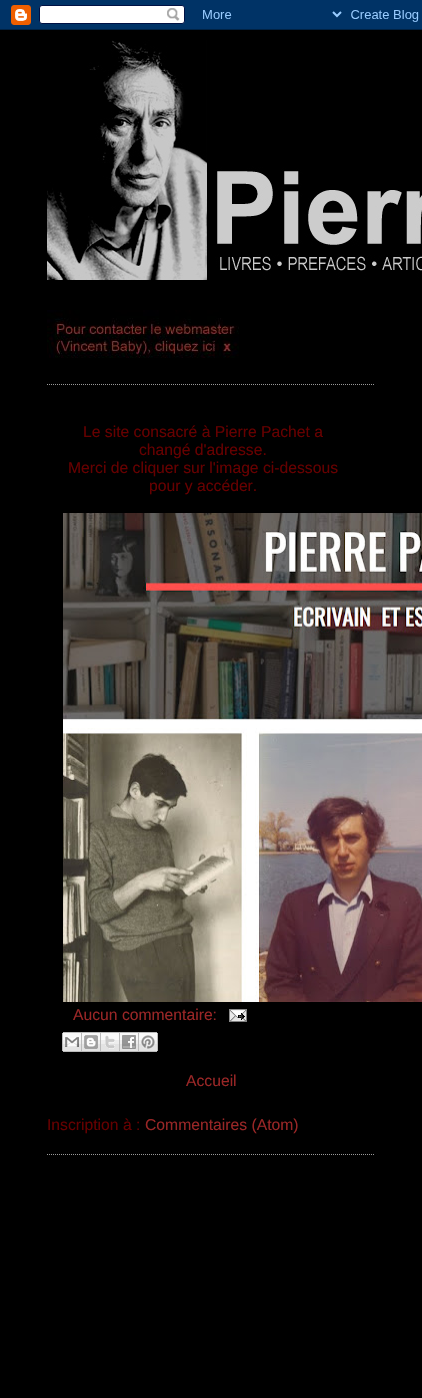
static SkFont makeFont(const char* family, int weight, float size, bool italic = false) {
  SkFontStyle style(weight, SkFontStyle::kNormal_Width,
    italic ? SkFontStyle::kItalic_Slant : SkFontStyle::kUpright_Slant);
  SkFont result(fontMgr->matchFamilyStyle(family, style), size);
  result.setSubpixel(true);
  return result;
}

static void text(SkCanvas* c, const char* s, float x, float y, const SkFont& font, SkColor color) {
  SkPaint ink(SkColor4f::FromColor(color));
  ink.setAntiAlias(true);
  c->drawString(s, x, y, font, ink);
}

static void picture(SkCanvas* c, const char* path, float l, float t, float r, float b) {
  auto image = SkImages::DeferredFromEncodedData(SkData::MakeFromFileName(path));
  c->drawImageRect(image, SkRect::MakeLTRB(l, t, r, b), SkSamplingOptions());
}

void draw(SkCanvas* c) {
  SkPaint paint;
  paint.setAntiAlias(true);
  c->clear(0xff000000);
  picture(c, "img_01.png", 0, 0, 422, 30);
  picture(c, "img_02.png", 47, 40, 422, 280);
  paint.setStyle(SkPaint::kStroke_Style);
  paint.setStrokeWidth(1);
  paint.setColor(0xff999999);
  paint.setPathEffect(SkDashPathEffect::Make({{1, 1}}, 0));
  c->drawPath(SkPathBuilder().moveTo(47, 384.5f).lineTo(375, 384.5f).detach(), paint);
  paint.setPathEffect(nullptr);
  picture(c, "img_03.png", 47, 310, 239, 358);
  paint.setPathEffect(SkDashPathEffect::Make({{1, 1}}, 0));
  c->drawPath(SkPathBuilder().moveTo(47, 1154.5f).lineTo(375, 1154.5f).detach(), paint);
  paint.setPathEffect(nullptr);
  SkFont face1 = makeFont("Liberation Sans", 400, 15.7f);
  text(c, "Le site consacré à Pierre Pachet a", 83, 437, face1, 0xff660000);
  text(c, "changé d'adresse.", 139, 455, face1, 0xff660000);
  text(c, "Merci de cliquer sur l'image ci-dessous", 68, 473, face1, 0xff660000);
  text(c, "pour y accéder.", 149, 491, face1, 0xff660000);
  picture(c, "img_04.png", 63, 513, 422, 1002);
  text(c, "Aucun commentaire:", 73, 1020, face1, 0xff992626);
  picture(c, "img_05.png", 229, 1009, 247, 1022);
  picture(c, "img_06.png", 62, 1032, 82, 1052);
  picture(c, "img_07.png", 82, 1032, 101, 1052);
  picture(c, "img_08.png", 101, 1032, 120, 1052);
  picture(c, "img_09.png", 120, 1032, 139, 1052);
  picture(c, "img_10.png", 139, 1032, 158, 1052);
  text(c, "Accueil", 186, 1086, face1, 0xff992626);
  text(c, "Inscription à :", 47, 1130, face1, 0xff660000);
  text(c, "Commentaires (Atom)", 145, 1130, face1, 0xff992626);
}
